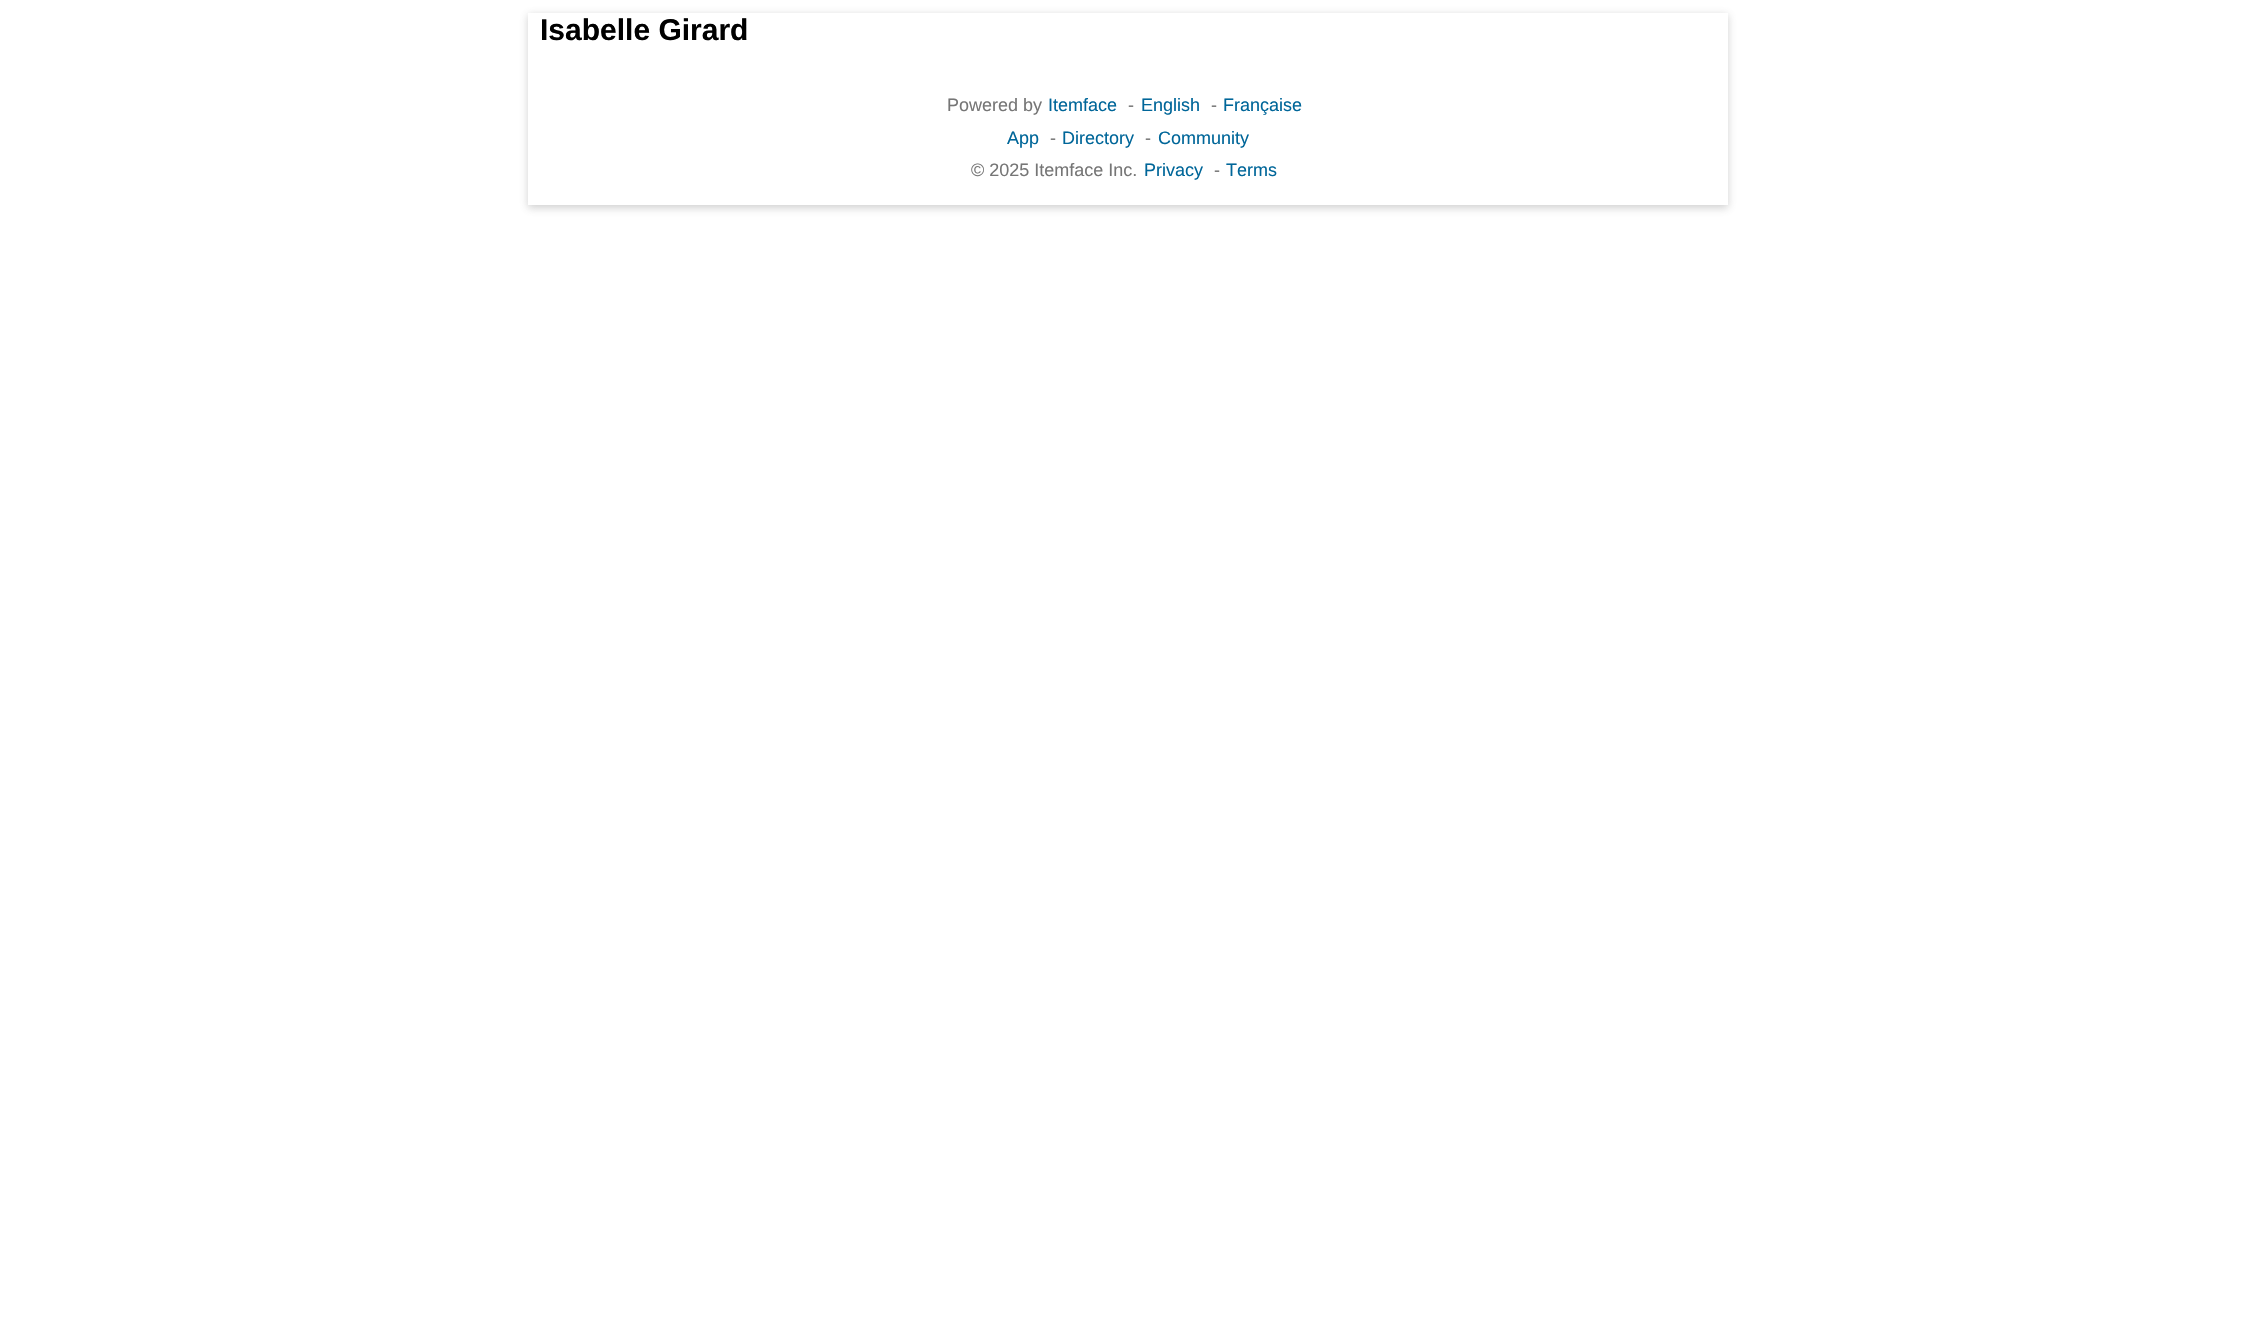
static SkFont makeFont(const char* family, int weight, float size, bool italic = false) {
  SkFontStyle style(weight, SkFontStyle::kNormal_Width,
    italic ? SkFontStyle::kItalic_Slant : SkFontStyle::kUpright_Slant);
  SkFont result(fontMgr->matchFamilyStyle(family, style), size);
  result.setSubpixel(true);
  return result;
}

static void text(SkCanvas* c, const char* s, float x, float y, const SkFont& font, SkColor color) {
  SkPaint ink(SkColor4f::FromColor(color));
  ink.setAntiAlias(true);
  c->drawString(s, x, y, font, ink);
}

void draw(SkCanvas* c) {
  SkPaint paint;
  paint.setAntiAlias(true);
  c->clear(0xffffffff);
  c->save();
  c->clipPath(SkPathBuilder(SkPathFillType::kEvenOdd).moveTo(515, 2).lineTo(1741, 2).lineTo(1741, 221).lineTo(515, 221).close().moveTo(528, 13).lineTo(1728, 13).lineTo(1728, 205).lineTo(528, 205).close().detach(), true);
  paint.setColor(0x4d646464);
  paint.setMaskFilter(SkMaskFilter::MakeBlur(kNormal_SkBlurStyle, 4));
  c->drawRect(SkRect::MakeLTRB(528, 15, 1728, 208), paint);
  paint.setMaskFilter(nullptr);
  c->restore();
  SkFont face1 = makeFont("Liberation Sans", 700, 30);
  text(c, "Isabelle Girard", 540, 40, face1, 0xff000000);
  SkFont face2 = makeFont("Liberation Sans", 400, 18);
  text(c, "Powered by", 947, 111, face2, 0xff767676);
  text(c, "Itemface", 1048, 111, face2, 0xff006699);
  text(c, "-", 1128, 111, face2, 0xff767676);
  text(c, "English", 1141, 111, face2, 0xff006699);
  text(c, "-", 1211, 111, face2, 0xff767676);
  text(c, "Française", 1223, 111, face2, 0xff006699);
  text(c, "App", 1007, 144, face2, 0xff006699);
  text(c, "-", 1050, 144, face2, 0xff767676);
  text(c, "Directory", 1062, 144, face2, 0xff006699);
  text(c, "-", 1145, 144, face2, 0xff767676);
  text(c, "Community", 1158, 144, face2, 0xff006699);
  text(c, "© 2025 Itemface Inc.", 971, 176, face2, 0xff767676);
  text(c, "Privacy", 1144, 176, face2, 0xff006699);
  text(c, "-", 1214, 176, face2, 0xff767676);
  text(c, "Terms", 1226, 176, face2, 0xff006699);
}
